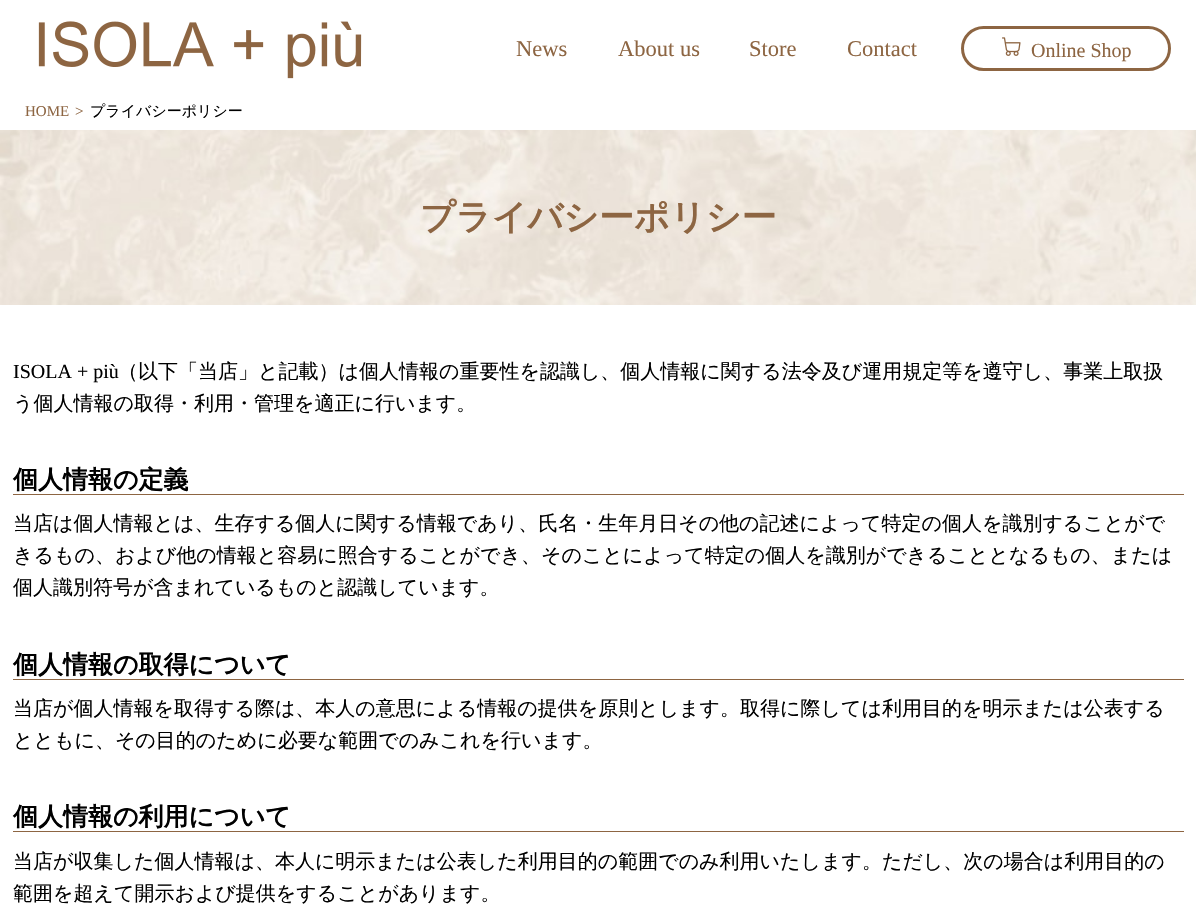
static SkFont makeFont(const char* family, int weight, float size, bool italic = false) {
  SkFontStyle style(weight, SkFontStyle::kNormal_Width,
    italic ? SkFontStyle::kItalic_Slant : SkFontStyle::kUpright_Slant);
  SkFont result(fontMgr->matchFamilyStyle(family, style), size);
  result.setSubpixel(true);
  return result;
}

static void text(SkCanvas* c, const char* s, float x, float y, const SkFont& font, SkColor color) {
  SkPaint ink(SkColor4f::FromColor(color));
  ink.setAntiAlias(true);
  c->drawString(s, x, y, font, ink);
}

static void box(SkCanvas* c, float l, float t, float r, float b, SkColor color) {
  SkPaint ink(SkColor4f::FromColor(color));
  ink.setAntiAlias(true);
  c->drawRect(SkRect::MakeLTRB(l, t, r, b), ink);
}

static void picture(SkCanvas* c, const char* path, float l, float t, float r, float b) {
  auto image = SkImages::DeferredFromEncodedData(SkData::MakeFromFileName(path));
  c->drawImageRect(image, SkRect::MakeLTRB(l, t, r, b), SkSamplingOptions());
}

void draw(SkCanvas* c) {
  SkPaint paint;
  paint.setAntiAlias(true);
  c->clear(0xffffffff);
  picture(c, "img_01.png", 38, 21, 362, 79);
  SkFont face1 = makeFont("Liberation Serif", 400, 22.5f);
  text(c, "News", 516, 56, face1, 0xff8d6542);
  text(c, "About us", 618, 56, face1, 0xff8d6542);
  text(c, "Store", 749, 56, face1, 0xff8d6542);
  text(c, "Contact", 847, 56, face1, 0xff8d6542);
  paint.setStyle(SkPaint::kStroke_Style);
  paint.setStrokeWidth(3);
  paint.setColor(0xff8d6542);
  c->drawRoundRect(SkRect::MakeLTRB(962.5f, 27.5f, 1169.5f, 69.5f), 21, 21, paint);
  picture(c, "img_02.png", 1002, 37, 1021, 56);
  SkFont face2 = makeFont("Liberation Serif", 400, 20);
  text(c, "Online Shop", 1031, 57, face2, 0xff8d6542);
  SkFont face3 = makeFont("Liberation Serif", 400, 15);
  text(c, "HOME", 25, 116, face3, 0xff8d6542);
  text(c, ">", 75, 116, face3, 0xff8d6542);
  SkFont face4 = makeFont("WenQuanYi Zen Hei", 500, 15);
  text(c, "プライバシーポリシー", 90, 116, face4, 0xff000000);
  picture(c, "img_03.png", 0, 130, 1196, 305);
  SkFont face5 = makeFont("WenQuanYi Zen Hei", 700, 35);
  text(c, "プライバシーポリシー", 420, 229, face5, 0xff8d6542);
  text(c, "ISOLA + più", 13, 378, face2, 0xff000000);
  SkFont face6 = makeFont("WenQuanYi Zen Hei", 500, 20);
  text(c, "（以下「当店」と記載）は個人情報の重要性を認識し、個人情報に関する法令及び運用規定等を遵守し、事業上取扱", 118, 378, face6, 0xff000000);
  text(c, "う個人情報の取得・利用・管理を適正に行います。", 13, 410, face6, 0xff000000);
  box(c, 13, 494, 1184, 495, 0xff8d6542);
  SkFont face7 = makeFont("WenQuanYi Zen Hei", 700, 25);
  text(c, "個人情報の定義", 13, 488, face7, 0xff000000);
  text(c, "当店は個人情報とは、生存する個人に関する情報であり、氏名・生年月日その他の記述によって特定の個人を識別することがで", 13, 530, face6, 0xff000000);
  text(c, "きるもの、および他の情報と容易に照合することができ、そのことによって特定の個人を識別ができることとなるもの、または", 13, 562, face6, 0xff000000);
  text(c, "個人識別符号が含まれているものと認識しています。", 13, 594, face6, 0xff000000);
  box(c, 13, 679, 1184, 680, 0xff8d6542);
  text(c, "個人情報の取得について", 13, 673, face7, 0xff000000);
  text(c, "当店が個人情報を取得する際は、本人の意思による情報の提供を原則とします。取得に際しては利用目的を明示または公表する", 13, 715, face6, 0xff000000);
  text(c, "とともに、その目的のために必要な範囲でのみこれを行います。", 13, 747, face6, 0xff000000);
  box(c, 13, 831, 1184, 832, 0xff8d6542);
  text(c, "個人情報の利用について", 13, 825, face7, 0xff000000);
  text(c, "当店が収集した個人情報は、本人に明示または公表した利用目的の範囲でのみ利用いたします。ただし、次の場合は利用目的の", 13, 868, face6, 0xff000000);
  text(c, "範囲を超えて開示および提供をすることがあります。", 13, 900, face6, 0xff000000);
}
